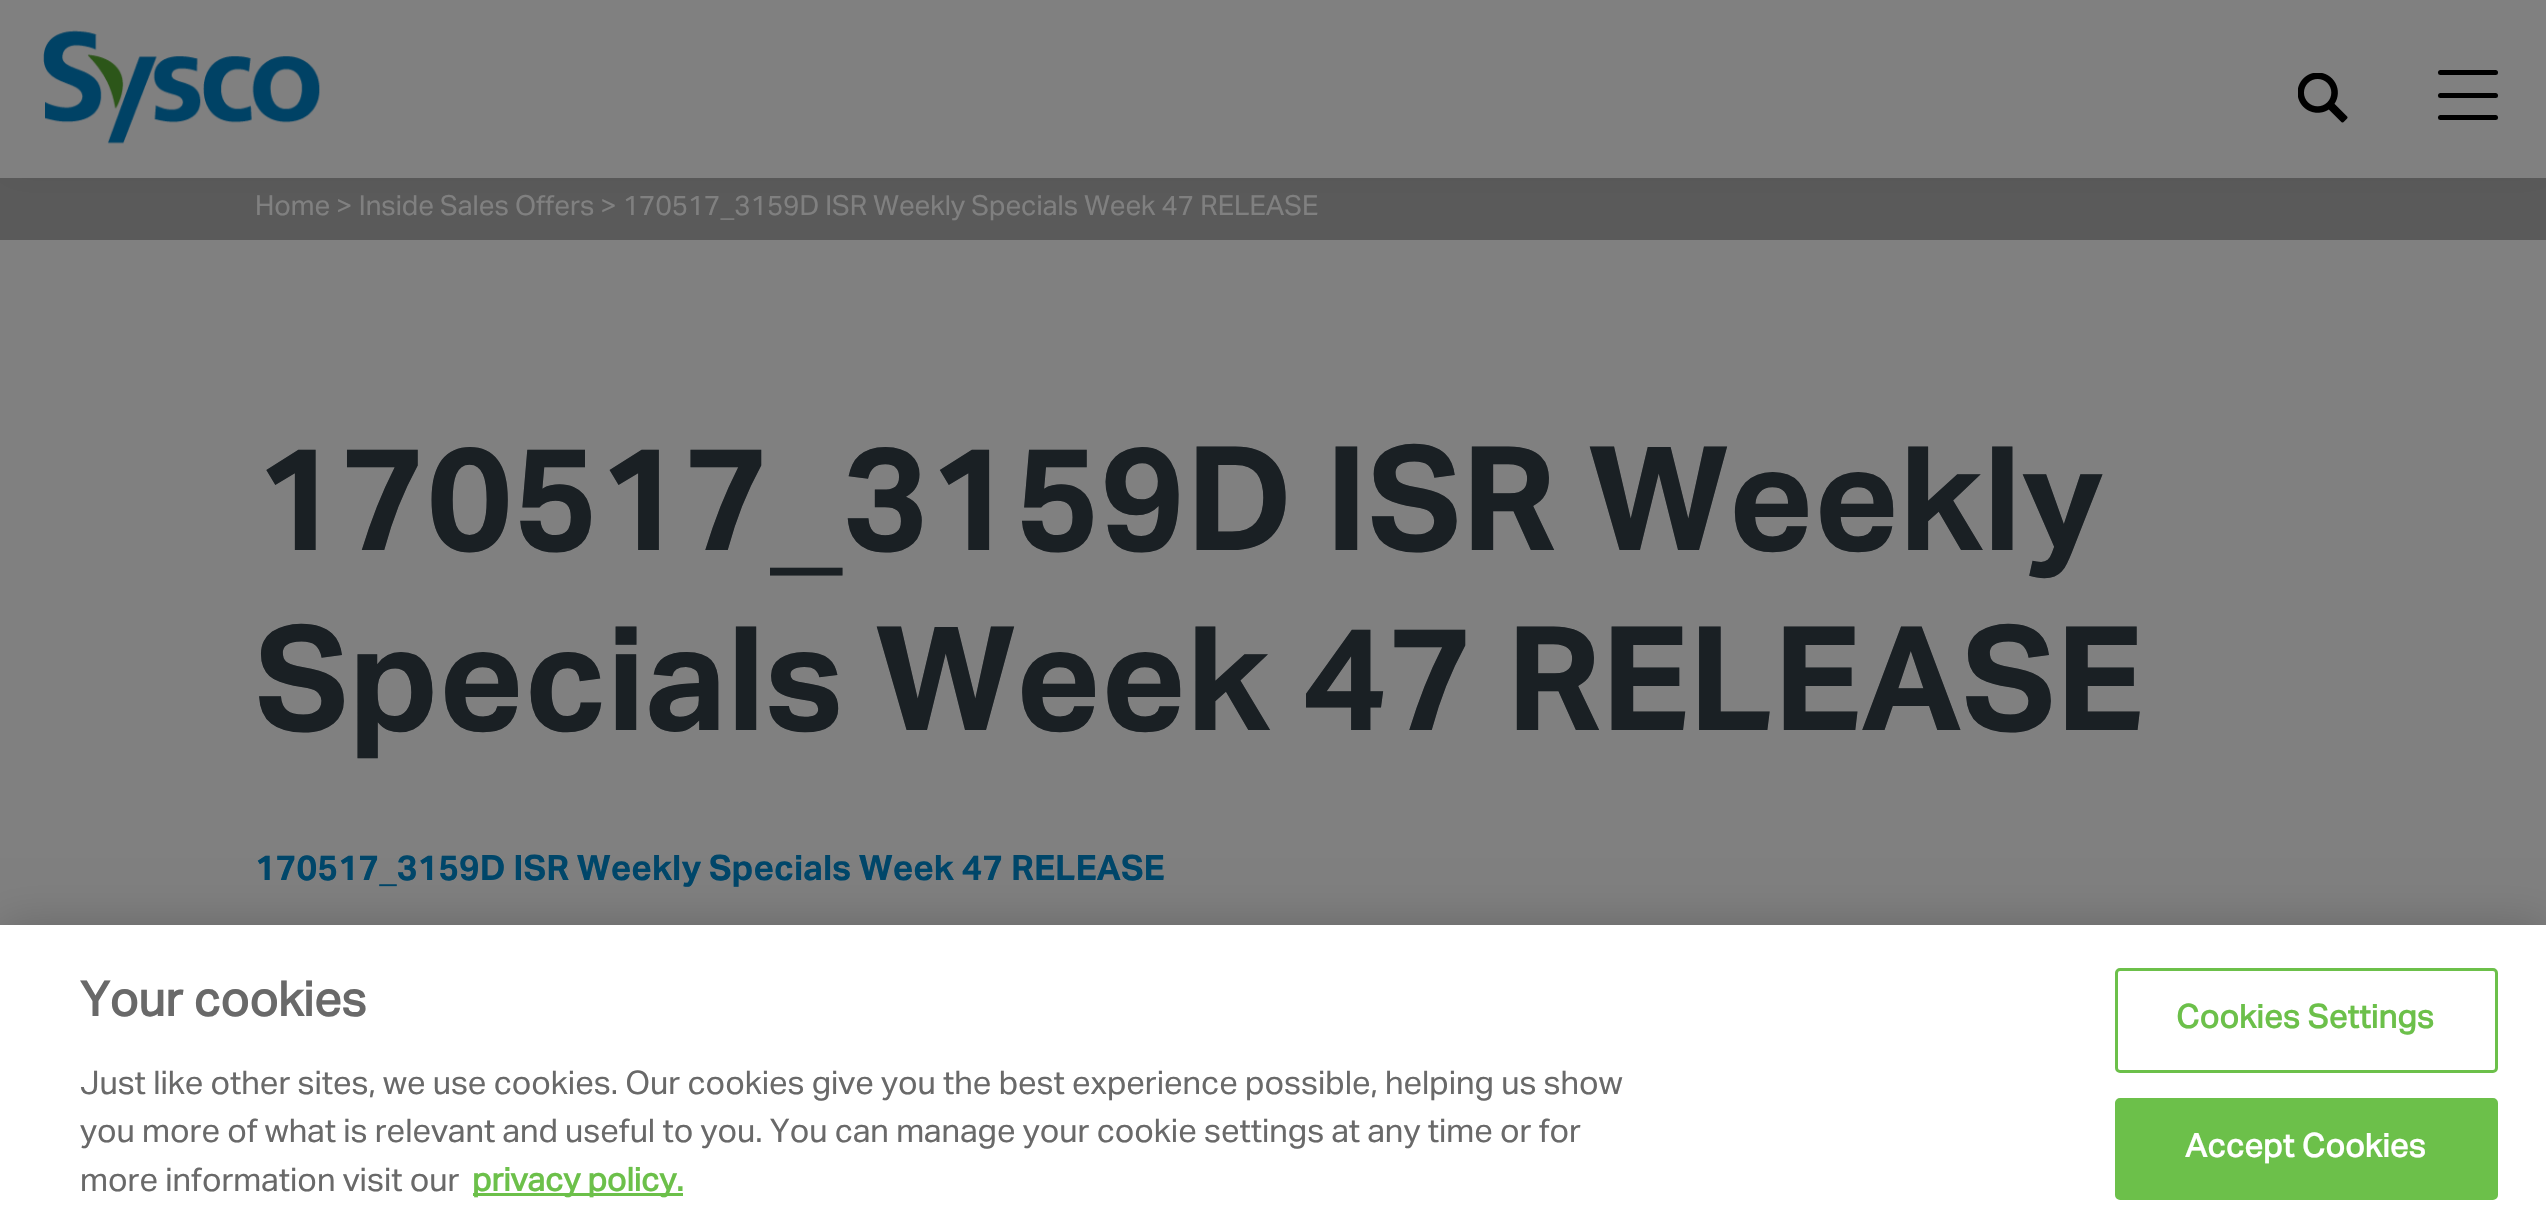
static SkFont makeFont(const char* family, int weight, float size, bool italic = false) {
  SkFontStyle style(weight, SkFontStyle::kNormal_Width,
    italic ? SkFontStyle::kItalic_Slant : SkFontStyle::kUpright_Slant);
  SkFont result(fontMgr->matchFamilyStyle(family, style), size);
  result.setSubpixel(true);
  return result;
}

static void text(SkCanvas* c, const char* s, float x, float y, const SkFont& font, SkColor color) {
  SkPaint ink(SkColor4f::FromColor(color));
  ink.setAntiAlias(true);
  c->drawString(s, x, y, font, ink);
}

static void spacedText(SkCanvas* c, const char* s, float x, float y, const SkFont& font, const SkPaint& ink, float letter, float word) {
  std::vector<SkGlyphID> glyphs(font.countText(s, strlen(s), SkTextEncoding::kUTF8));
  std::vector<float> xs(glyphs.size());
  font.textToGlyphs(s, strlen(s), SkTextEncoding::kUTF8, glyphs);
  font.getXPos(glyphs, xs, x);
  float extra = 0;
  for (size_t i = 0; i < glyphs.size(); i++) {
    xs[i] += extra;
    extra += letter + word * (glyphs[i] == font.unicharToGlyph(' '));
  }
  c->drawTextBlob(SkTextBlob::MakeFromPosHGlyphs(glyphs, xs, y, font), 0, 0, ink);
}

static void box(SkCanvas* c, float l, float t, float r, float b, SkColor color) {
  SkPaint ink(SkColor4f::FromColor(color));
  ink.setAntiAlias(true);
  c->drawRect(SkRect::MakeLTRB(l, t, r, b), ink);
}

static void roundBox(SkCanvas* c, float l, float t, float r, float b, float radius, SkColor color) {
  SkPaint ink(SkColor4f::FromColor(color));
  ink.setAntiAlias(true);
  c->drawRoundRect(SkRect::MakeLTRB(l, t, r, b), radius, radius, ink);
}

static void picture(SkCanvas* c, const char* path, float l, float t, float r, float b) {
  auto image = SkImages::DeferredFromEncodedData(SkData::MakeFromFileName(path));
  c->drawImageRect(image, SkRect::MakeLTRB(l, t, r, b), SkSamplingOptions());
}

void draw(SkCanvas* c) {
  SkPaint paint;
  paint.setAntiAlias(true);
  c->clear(0xff808080);
  box(c, 0, 178, 2546, 240, 0xff5a5a5a);
  paint.setColor(0xff555555);
  paint.setMaskFilter(SkMaskFilter::MakeBlur(kNormal_SkBlurStyle, 17.5f));
  c->drawRect(SkRect::MakeLTRB(3, -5, 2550, 173), paint);
  paint.setMaskFilter(nullptr);
  box(c, 0, 0, 2546, 178, 0xff808080);
  picture(c, "img_01.png", 43, 30, 320, 144);
  picture(c, "img_02.png", 2298, 73, 2348, 123);
  roundBox(c, 2438, 70, 2498, 75, 2.5f, 0xff000000);
  roundBox(c, 2438, 93, 2498, 98, 2.5f, 0xff000000);
  roundBox(c, 2438, 115, 2498, 120, 2.5f, 0xff000000);
  SkFont face1 = makeFont("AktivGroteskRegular", 400, 27.5f);
  text(c, "Home > Inside Sales Offers > 170517_3159D ISR Weekly Specials Week 47 RELEASE", 255, 215, face1, 0xff808080);
  SkFont face2 = makeFont("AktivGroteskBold", 700, 145);
  text(c, "170517_3159D ISR Weekly", 255, 550, face2, 0xff1a2024);
  text(c, "Specials Week 47 RELEASE", 255, 730, face2, 0xff1a2024);
  SkFont face3 = makeFont("AktivGroteskBold", 700, 35);
  text(c, "170517_3159D ISR Weekly Specials Week 47 RELEASE", 255, 880, face3, 0xff004669);
  paint.setColor(0x33000000);
  paint.setMaskFilter(SkMaskFilter::MakeBlur(kNormal_SkBlurStyle, 22.5f));
  c->drawRect(SkRect::MakeLTRB(0, 925, 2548, 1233), paint);
  paint.setMaskFilter(nullptr);
  box(c, 0, 925, 2546, 1232, 0xffffffff);
  SkFont face4 = makeFont("AktivGroteskRegular", 700, 48);
  text(c, "Your cookies", 80, 1016, face4, 0xff696969);
  SkFont face5 = makeFont("AktivGroteskRegular", 400, 32.5f);
  text(c, "Just like other sites, we use cookies. Our cookies give you the best experience possible, helping us show", 80, 1094, face5, 0xff696969);
  text(c, "you more of what is relevant and useful to you. You can manage your cookie settings at any time or for", 80, 1142, face5, 0xff696969);
  text(c, "more information visit our", 80, 1191, face5, 0xff696969);
  box(c, 473, 1193, 683, 1196, 0xff6cc04a);
  SkFont face6 = makeFont("AktivGroteskRegular", 700, 32.5f);
  text(c, "privacy policy.", 472, 1191, face6, 0xff6cc04a);
  paint.setStyle(SkPaint::kStroke_Style);
  paint.setStrokeWidth(3);
  paint.setColor(0xff6cc04a);
  c->drawRoundRect(SkRect::MakeLTRB(2116.5f, 969.5f, 2496.5f, 1071.5f), 3.5f, 3.5f, paint);
  paint.setStyle(SkPaint::kFill_Style);
  spacedText(c, "Cookies Settings", 2176, 1028, face6, paint, 0.3f, 0);
  c->drawRoundRect(SkRect::MakeLTRB(2116.5f, 1099.5f, 2496.5f, 1198.5f), 3.5f, 3.5f, paint);
  paint.setStyle(SkPaint::kStroke_Style);
  c->drawRoundRect(SkRect::MakeLTRB(2116.5f, 1099.5f, 2496.5f, 1198.5f), 3.5f, 3.5f, paint);
  paint.setStyle(SkPaint::kFill_Style);
  paint.setColor(0xffffffff);
  spacedText(c, "Accept Cookies", 2185, 1157, face6, paint, 0.3f, 0);
}
